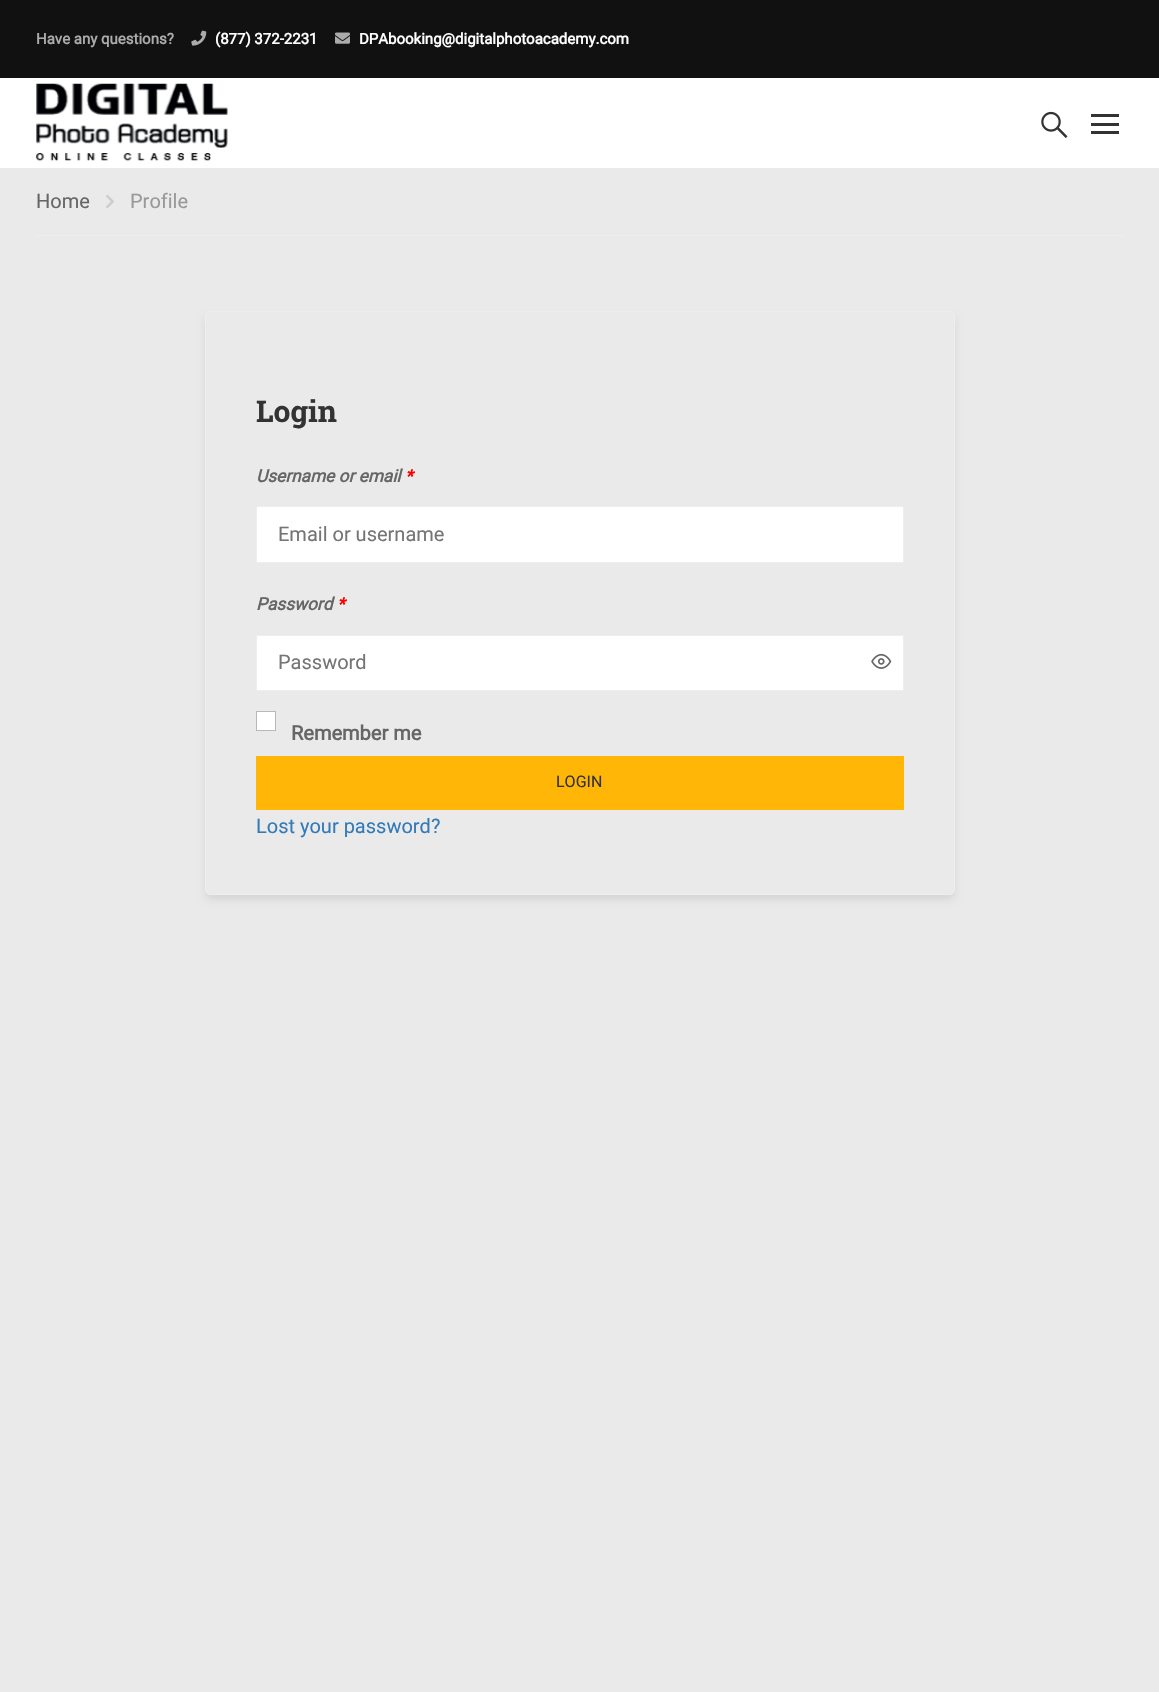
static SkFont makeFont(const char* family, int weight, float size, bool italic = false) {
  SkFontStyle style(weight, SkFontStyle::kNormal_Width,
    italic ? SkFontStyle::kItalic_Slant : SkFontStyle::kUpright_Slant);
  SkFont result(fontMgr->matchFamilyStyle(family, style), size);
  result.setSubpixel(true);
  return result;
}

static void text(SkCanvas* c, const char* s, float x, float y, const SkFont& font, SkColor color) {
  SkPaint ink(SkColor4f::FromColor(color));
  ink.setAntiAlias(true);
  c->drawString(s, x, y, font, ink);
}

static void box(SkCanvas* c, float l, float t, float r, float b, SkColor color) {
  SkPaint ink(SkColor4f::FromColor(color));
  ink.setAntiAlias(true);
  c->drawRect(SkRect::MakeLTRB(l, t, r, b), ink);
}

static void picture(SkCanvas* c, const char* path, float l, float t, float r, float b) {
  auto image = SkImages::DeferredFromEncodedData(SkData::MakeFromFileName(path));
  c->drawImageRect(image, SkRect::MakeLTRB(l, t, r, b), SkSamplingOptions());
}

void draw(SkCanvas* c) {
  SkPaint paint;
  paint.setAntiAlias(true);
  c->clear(0xffeaeaea);
  box(c, 0, 78, 1159, 168, 0xffffffff);
  box(c, 0, 0, 1159, 78, 0xff111111);
  SkFont face1 = makeFont("Roboto", 700, 15);
  text(c, "Have any questions?", 36, 44, face1, 0xffababab);
  picture(c, "img_01.png", 191, 30, 207, 46);
  text(c, "(877) 372-2231", 215, 44, face1, 0xffffffff);
  picture(c, "img_02.png", 335, 32, 350, 44);
  text(c, "DPAbooking@digitalphotoacademy.com", 359, 44, face1, 0xffffffff);
  picture(c, "img_03.png", 36, 83, 228, 161);
  picture(c, "img_04.png", 1041, 111, 1068, 138);
  box(c, 1091, 114, 1119, 117, 0xff333333);
  box(c, 1091, 123, 1119, 126, 0xff333333);
  box(c, 1091, 131, 1119, 134, 0xff333333);
  box(c, 36, 235, 1124, 236, 0xffeeeeee);
  SkFont face2 = makeFont("Roboto", 400, 20);
  text(c, "Home", 36, 208, face2, 0xff666666);
  picture(c, "img_05.png", 106, 194, 114, 209);
  text(c, "Profile", 130, 208, face2, 0xff999999);
  c->save();
  c->clipPath(SkPathBuilder(SkPathFillType::kEvenOdd).moveTo(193, 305).lineTo(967, 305).lineTo(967, 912).lineTo(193, 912).close().moveTo(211, 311).lineTo(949, 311).cubicTo(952.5f, 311, 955, 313.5f, 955, 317).lineTo(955, 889).cubicTo(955, 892.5f, 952.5f, 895, 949, 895).lineTo(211, 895).cubicTo(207.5f, 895, 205, 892.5f, 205, 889).lineTo(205, 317).cubicTo(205, 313.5f, 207.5f, 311, 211, 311).close().detach(), true);
  paint.setColor(0x1a000000);
  paint.setMaskFilter(SkMaskFilter::MakeBlur(kNormal_SkBlurStyle, 4));
  c->drawRoundRect(SkRect::MakeLTRB(206, 318, 954, 899), 5, 5, paint);
  paint.setMaskFilter(nullptr);
  c->restore();
  paint.setStyle(SkPaint::kStroke_Style);
  paint.setStrokeWidth(1);
  paint.setColor(0xffeeeeee);
  c->drawRoundRect(SkRect::MakeLTRB(205.5f, 311.5f, 954.5f, 894.5f), 5.5f, 5.5f, paint);
  SkFont face3 = makeFont("Roboto Slab", 700, 30);
  text(c, "Login", 256, 422, face3, 0xff333333);
  SkFont face4 = makeFont("Roboto", 700, 17.25f, true);
  text(c, "Username or email", 256, 482, face4, 0xff666666);
  text(c, "*", 405, 482, face4, 0xffff0000);
  paint.setStyle(SkPaint::kFill_Style);
  paint.setColor(0xffffffff);
  c->drawRect(SkRect::MakeLTRB(256.5f, 506.5f, 903.5f, 562.5f), paint);
  paint.setStyle(SkPaint::kStroke_Style);
  paint.setColor(0xffeeeeee);
  c->drawRect(SkRect::MakeLTRB(256.5f, 506.5f, 903.5f, 562.5f), paint);
  text(c, "Email or username", 278, 541, face2, 0xff757575);
  text(c, "Password", 256, 610, face4, 0xff666666);
  text(c, "*", 337, 610, face4, 0xffff0000);
  paint.setStyle(SkPaint::kFill_Style);
  paint.setColor(0xffffffff);
  c->drawRect(SkRect::MakeLTRB(256.5f, 635.5f, 903.5f, 690.5f), paint);
  paint.setStyle(SkPaint::kStroke_Style);
  paint.setColor(0xffeeeeee);
  c->drawRect(SkRect::MakeLTRB(256.5f, 635.5f, 903.5f, 690.5f), paint);
  text(c, "Password", 278, 669, face2, 0xff757575);
  picture(c, "img_06.png", 871, 653, 892, 669);
  paint.setStyle(SkPaint::kFill_Style);
  paint.setColor(0xffffffff);
  c->drawRect(SkRect::MakeLTRB(256.5f, 711.5f, 275.5f, 730.5f), paint);
  paint.setStyle(SkPaint::kStroke_Style);
  paint.setColor(0xffb4b9be);
  c->drawRect(SkRect::MakeLTRB(256.5f, 711.5f, 275.5f, 730.5f), paint);
  SkFont face5 = makeFont("Roboto", 700, 20);
  text(c, "Remember me", 291, 740, face5, 0xff666666);
  box(c, 256, 756, 904, 810, 0xffffb606);
  SkFont face6 = makeFont("Roboto", 400, 16);
  text(c, "LOGIN", 556, 787, face6, 0xff333333);
  text(c, "Lost your password?", 256, 833, face2, 0xff337ab7);
}
